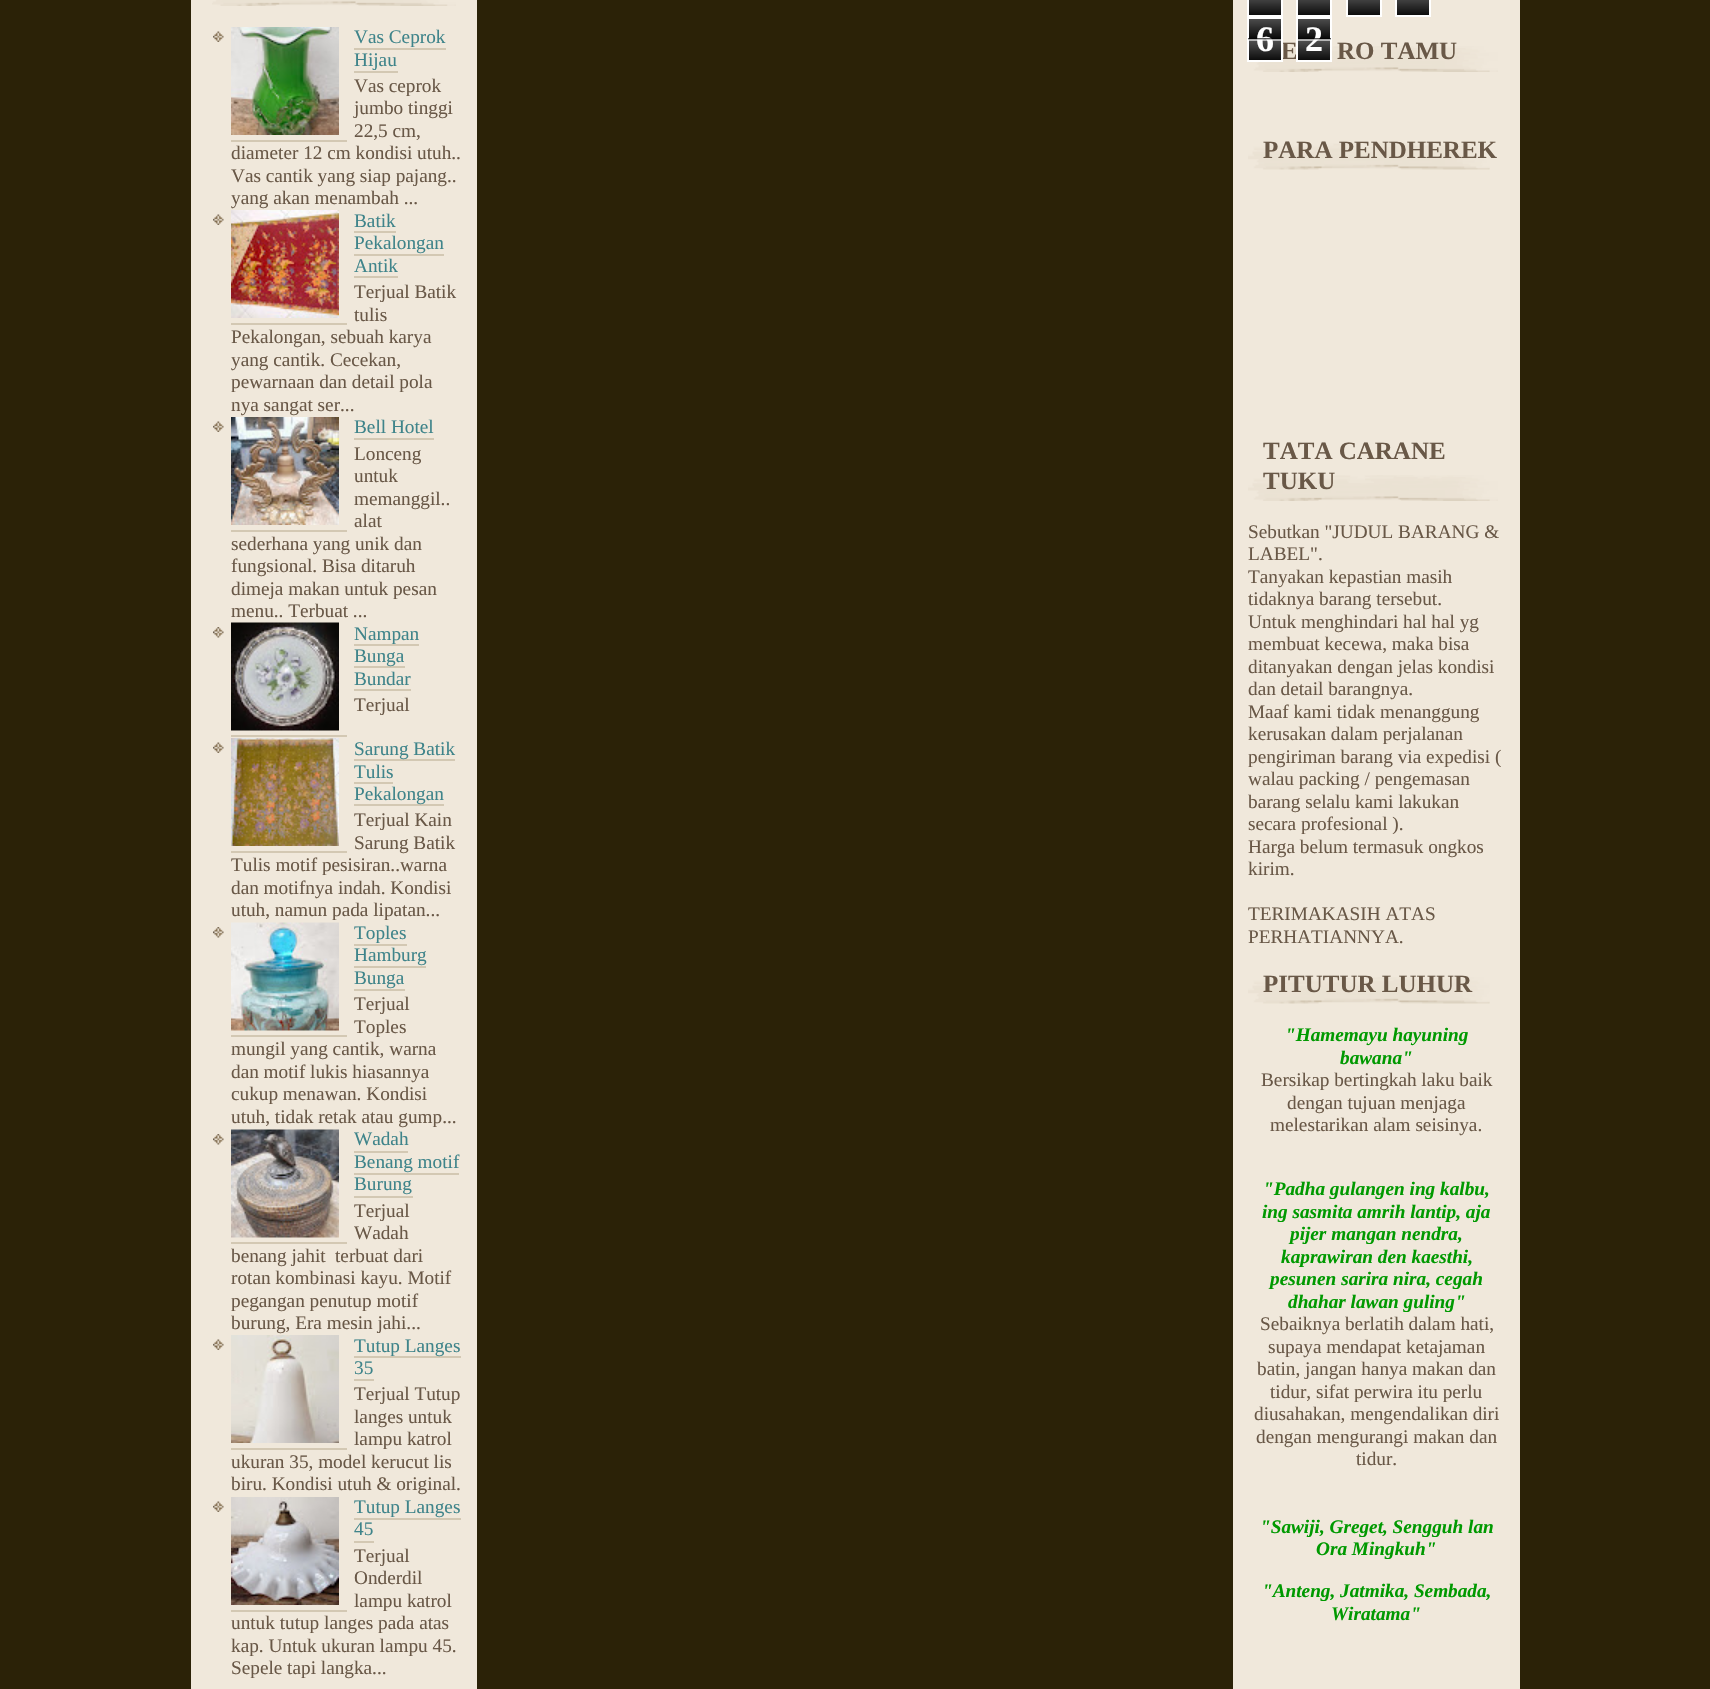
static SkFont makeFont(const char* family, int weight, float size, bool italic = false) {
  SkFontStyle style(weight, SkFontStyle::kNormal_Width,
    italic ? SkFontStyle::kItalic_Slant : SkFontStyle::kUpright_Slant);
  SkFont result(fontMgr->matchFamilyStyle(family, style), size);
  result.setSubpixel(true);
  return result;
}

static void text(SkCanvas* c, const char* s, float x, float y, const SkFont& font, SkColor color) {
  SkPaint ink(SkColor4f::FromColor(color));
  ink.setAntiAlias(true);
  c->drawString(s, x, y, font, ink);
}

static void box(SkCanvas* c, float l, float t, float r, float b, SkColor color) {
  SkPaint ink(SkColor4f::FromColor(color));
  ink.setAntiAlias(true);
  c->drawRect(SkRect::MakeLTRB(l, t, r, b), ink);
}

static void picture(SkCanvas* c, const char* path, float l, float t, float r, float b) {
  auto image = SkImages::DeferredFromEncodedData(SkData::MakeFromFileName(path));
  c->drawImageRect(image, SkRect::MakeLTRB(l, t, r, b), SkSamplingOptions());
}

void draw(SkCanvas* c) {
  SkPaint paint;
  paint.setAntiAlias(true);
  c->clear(0xff2b2207);
  box(c, 191, 0, 477, 1689, 0xfff0e8db);
  picture(c, "img_01.png", 212, 0, 456, 6);
  picture(c, "img_02.png", 213, 31, 224, 42);
  picture(c, "img_03.png", 231, 27, 339, 135);
  box(c, 231, 140, 347, 142, 0xffd3c8b3);
  SkFont face1 = makeFont("Liberation Serif", 400, 19.25f);
  text(c, "Vas Ceprok", 354, 43, face1, 0xff3f848a);
  box(c, 354, 48, 446, 50, 0xffd3c8b3);
  text(c, "Hijau", 354, 66, face1, 0xff3f848a);
  box(c, 354, 71, 398, 73, 0xffd3c8b3);
  text(c, "Vas ceprok", 354, 92, face1, 0xff695847);
  text(c, "jumbo tinggi", 354, 114, face1, 0xff695847);
  text(c, "22,5 cm,", 354, 137, face1, 0xff695847);
  text(c, "diameter 12 cm kondisi utuh..", 231, 159, face1, 0xff695847);
  text(c, "Vas cantik yang siap pajang..", 231, 182, face1, 0xff695847);
  text(c, "yang akan menambah ...", 231, 204, face1, 0xff695847);
  picture(c, "img_02.png", 213, 214, 224, 225);
  picture(c, "img_04.png", 231, 210, 339, 318);
  box(c, 231, 323, 347, 325, 0xffd3c8b3);
  text(c, "Batik", 354, 227, face1, 0xff3f848a);
  box(c, 354, 231, 396, 233, 0xffd3c8b3);
  text(c, "Pekalongan", 354, 249, face1, 0xff3f848a);
  box(c, 354, 254, 444, 256, 0xffd3c8b3);
  text(c, "Antik", 354, 272, face1, 0xff3f848a);
  box(c, 354, 276, 398, 278, 0xffd3c8b3);
  text(c, "Terjual Batik", 354, 298, face1, 0xff695847);
  text(c, "tulis", 354, 321, face1, 0xff695847);
  text(c, "Pekalongan, sebuah karya", 231, 343, face1, 0xff695847);
  text(c, "yang cantik. Cecekan,", 231, 366, face1, 0xff695847);
  text(c, "pewarnaan dan detail pola", 231, 388, face1, 0xff695847);
  text(c, "nya sangat ser...", 231, 411, face1, 0xff695847);
  picture(c, "img_02.png", 213, 421, 224, 432);
  picture(c, "img_05.png", 231, 417, 339, 525);
  box(c, 231, 530, 347, 532, 0xffd3c8b3);
  text(c, "Bell Hotel", 354, 433, face1, 0xff3f848a);
  box(c, 354, 438, 434, 440, 0xffd3c8b3);
  text(c, "Lonceng", 354, 460, face1, 0xff695847);
  text(c, "untuk", 354, 482, face1, 0xff695847);
  text(c, "memanggil..", 354, 505, face1, 0xff695847);
  text(c, "alat", 354, 527, face1, 0xff695847);
  text(c, "sederhana yang unik dan", 231, 550, face1, 0xff695847);
  text(c, "fungsional. Bisa ditaruh", 231, 572, face1, 0xff695847);
  text(c, "dimeja makan untuk pesan", 231, 595, face1, 0xff695847);
  text(c, "menu.. Terbuat ...", 231, 617, face1, 0xff695847);
  picture(c, "img_06.png", 213, 627, 224, 638);
  picture(c, "img_07.png", 231, 622, 339, 731);
  box(c, 231, 735, 347, 737, 0xffd3c8b3);
  box(c, 354, 644, 419, 646, 0xffd3c8b3);
  text(c, "Nampan", 354, 640, face1, 0xff3f848a);
  box(c, 354, 666, 405, 668, 0xffd3c8b3);
  text(c, "Bunga", 354, 662, face1, 0xff3f848a);
  text(c, "Bundar", 354, 685, face1, 0xff3f848a);
  box(c, 354, 689, 411, 691, 0xffd3c8b3);
  text(c, "Terjual", 354, 711, face1, 0xff695847);
  picture(c, "img_02.png", 213, 742, 224, 753);
  picture(c, "img_08.png", 231, 738, 339, 846);
  box(c, 231, 851, 347, 853, 0xffd3c8b3);
  box(c, 354, 759, 455, 761, 0xffd3c8b3);
  text(c, "Sarung Batik", 354, 755, face1, 0xff3f848a);
  text(c, "Tulis", 354, 778, face1, 0xff3f848a);
  box(c, 354, 782, 393, 784, 0xffd3c8b3);
  box(c, 354, 804, 444, 806, 0xffd3c8b3);
  text(c, "Pekalongan", 354, 800, face1, 0xff3f848a);
  text(c, "Terjual Kain", 354, 826, face1, 0xff695847);
  text(c, "Sarung Batik", 354, 849, face1, 0xff695847);
  text(c, "Tulis motif pesisiran..warna", 231, 871, face1, 0xff695847);
  text(c, "dan motifnya indah. Kondisi", 231, 894, face1, 0xff695847);
  text(c, "utuh, namun pada lipatan...", 231, 916, face1, 0xff695847);
  picture(c, "img_06.png", 213, 927, 224, 938);
  picture(c, "img_09.png", 231, 922, 339, 1031);
  box(c, 231, 1035, 347, 1037, 0xffd3c8b3);
  text(c, "Toples", 354, 939, face1, 0xff3f848a);
  box(c, 354, 944, 407, 946, 0xffd3c8b3);
  text(c, "Hamburg", 354, 961, face1, 0xff3f848a);
  box(c, 354, 966, 426, 968, 0xffd3c8b3);
  text(c, "Bunga", 354, 984, face1, 0xff3f848a);
  box(c, 354, 989, 405, 991, 0xffd3c8b3);
  text(c, "Terjual", 354, 1010, face1, 0xff695847);
  text(c, "Toples", 354, 1033, face1, 0xff695847);
  text(c, "mungil yang cantik, warna", 231, 1055, face1, 0xff695847);
  text(c, "dan motif lukis hiasannya", 231, 1078, face1, 0xff695847);
  text(c, "cukup menawan. Kondisi", 231, 1100, face1, 0xff695847);
  text(c, "utuh, tidak retak atau gump...", 231, 1123, face1, 0xff695847);
  picture(c, "img_06.png", 213, 1134, 224, 1145);
  picture(c, "img_10.png", 231, 1129, 339, 1238);
  box(c, 231, 1242, 347, 1244, 0xffd3c8b3);
  text(c, "Wadah", 354, 1145, face1, 0xff3f848a);
  text(c, "Benang motif", 354, 1168, face1, 0xff3f848a);
  box(c, 354, 1151, 408, 1153, 0xffd3c8b3);
  box(c, 354, 1173, 459, 1175, 0xffd3c8b3);
  text(c, "Burung", 354, 1190, face1, 0xff3f848a);
  box(c, 354, 1196, 413, 1198, 0xffd3c8b3);
  text(c, "Terjual", 354, 1217, face1, 0xff695847);
  text(c, "Wadah", 354, 1239, face1, 0xff695847);
  text(c, "benang jahit", 231, 1262, face1, 0xff695847);
  text(c, "terbuat dari", 335, 1262, face1, 0xff695847);
  text(c, "rotan kombinasi kayu. Motif", 231, 1284, face1, 0xff695847);
  text(c, "pegangan penutup motif", 231, 1307, face1, 0xff695847);
  text(c, "burung, Era mesin jahi...", 231, 1329, face1, 0xff695847);
  picture(c, "img_02.png", 213, 1339, 224, 1350);
  picture(c, "img_11.png", 231, 1335, 339, 1443);
  box(c, 231, 1448, 347, 1450, 0xffd3c8b3);
  box(c, 354, 1356, 461, 1358, 0xffd3c8b3);
  text(c, "Tutup Langes", 354, 1352, face1, 0xff3f848a);
  text(c, "35", 354, 1374, face1, 0xff3f848a);
  box(c, 354, 1379, 374, 1381, 0xffd3c8b3);
  text(c, "Terjual Tutup", 354, 1400, face1, 0xff695847);
  text(c, "langes untuk", 354, 1423, face1, 0xff695847);
  text(c, "lampu katrol", 354, 1445, face1, 0xff695847);
  text(c, "ukuran 35, model kerucut lis", 231, 1468, face1, 0xff695847);
  text(c, "biru. Kondisi utuh & original.", 231, 1490, face1, 0xff695847);
  picture(c, "img_02.png", 213, 1501, 224, 1512);
  picture(c, "img_12.png", 231, 1497, 339, 1605);
  box(c, 231, 1610, 347, 1612, 0xffd3c8b3);
  text(c, "Tutup Langes", 354, 1513, face1, 0xff3f848a);
  box(c, 354, 1518, 461, 1520, 0xffd3c8b3);
  text(c, "45", 354, 1535, face1, 0xff3f848a);
  box(c, 354, 1541, 374, 1543, 0xffd3c8b3);
  text(c, "Terjual", 354, 1562, face1, 0xff695847);
  text(c, "Onderdil", 354, 1584, face1, 0xff695847);
  text(c, "lampu katrol", 354, 1607, face1, 0xff695847);
  text(c, "untuk tutup langes pada atas", 231, 1629, face1, 0xff695847);
  text(c, "kap. Untuk ukuran lampu 45.", 231, 1652, face1, 0xff695847);
  text(c, "Sepele tapi langka...", 231, 1674, face1, 0xff695847);
  box(c, 1233, 0, 1520, 1689, 0xfff0e8db);
  picture(c, "img_13.png", 1249, 0, 1281, 15);
  paint.setStyle(SkPaint::kStroke_Style);
  paint.setStrokeWidth(2);
  paint.setColor(0xffffffff);
  c->drawRect(SkRect::MakeLTRB(1248, -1, 1282, 16), paint);
  picture(c, "img_13.png", 1298, 0, 1330, 15);
  c->drawRect(SkRect::MakeLTRB(1297, -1, 1331, 16), paint);
  picture(c, "img_13.png", 1348, 0, 1380, 15);
  c->drawRect(SkRect::MakeLTRB(1347, -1, 1381, 16), paint);
  picture(c, "img_13.png", 1397, 0, 1429, 15);
  c->drawRect(SkRect::MakeLTRB(1396, -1, 1430, 16), paint);
  picture(c, "img_16.png", 1248, 46, 1498, 72);
  picture(c, "img_14.png", 1249, 19, 1281, 60);
  SkFont face2 = makeFont("Liberation Serif", 700, 25);
  text(c, "E", 1281, 59, face2, 0xff695847);
  c->drawRect(SkRect::MakeLTRB(1248, 18, 1282, 61), paint);
  SkFont face3 = makeFont("Liberation Serif", 700, 36);
  text(c, "6", 1256, 51, face3, 0xffffffff);
  box(c, 1248, 38, 1281, 40, 0xa6000000);
  box(c, 1248, 39, 1281, 41, 0xa6ffffff);
  picture(c, "img_15.png", 1298, 19, 1330, 60);
  c->drawRect(SkRect::MakeLTRB(1297, 18, 1331, 61), paint);
  text(c, "2", 1305, 51, face3, 0xffffffff);
  box(c, 1298, 38, 1331, 40, 0xa6000000);
  box(c, 1298, 39, 1331, 41, 0xa6ffffff);
  text(c, "RO TAMU", 1337, 59, face2, 0xff695847);
  picture(c, "img_17.png", 1248, 143, 1490, 170);
  text(c, "PARA PENDHEREK", 1263, 158, face2, 0xff695847);
  picture(c, "img_16.png", 1248, 475, 1498, 501);
  text(c, "TATA CARANE", 1263, 459, face2, 0xff695847);
  text(c, "TUKU", 1263, 489, face2, 0xff695847);
  text(c, "Sebutkan \"JUDUL BARANG &", 1248, 538, face1, 0xff695847);
  text(c, "LABEL\".", 1248, 560, face1, 0xff695847);
  text(c, "Tanyakan kepastian masih", 1248, 583, face1, 0xff695847);
  text(c, "tidaknya barang tersebut.", 1248, 605, face1, 0xff695847);
  text(c, "Untuk menghindari hal hal yg", 1248, 628, face1, 0xff695847);
  text(c, "membuat kecewa, maka bisa", 1248, 650, face1, 0xff695847);
  text(c, "ditanyakan dengan jelas kondisi", 1248, 673, face1, 0xff695847);
  text(c, "dan detail barangnya.", 1248, 695, face1, 0xff695847);
  text(c, "Maaf kami tidak menanggung", 1248, 718, face1, 0xff695847);
  text(c, "kerusakan dalam perjalanan", 1248, 740, face1, 0xff695847);
  text(c, "pengiriman barang via expedisi (", 1248, 763, face1, 0xff695847);
  text(c, "walau packing / pengemasan", 1248, 785, face1, 0xff695847);
  text(c, "barang selalu kami lakukan", 1248, 808, face1, 0xff695847);
  text(c, "secara profesional ).", 1248, 830, face1, 0xff695847);
  text(c, "Harga belum termasuk ongkos", 1248, 853, face1, 0xff695847);
  text(c, "kirim.", 1248, 875, face1, 0xff695847);
  text(c, "TERIMAKASIH ATAS", 1248, 920, face1, 0xff695847);
  text(c, "PERHATIANNYA.", 1248, 943, face1, 0xff695847);
  picture(c, "img_17.png", 1248, 977, 1490, 1004);
  text(c, "PITUTUR LUHUR", 1263, 992, face2, 0xff695847);
  SkFont face4 = makeFont("Liberation Serif", 700, 19.25f, true);
  text(c, "\"Hamemayu hayuning", 1285, 1041, face4, 0xff009900);
  text(c, "bawana\"", 1340, 1064, face4, 0xff009900);
  text(c, "Bersikap bertingkah laku baik", 1261, 1086, face1, 0xff695847);
  text(c, "dengan tujuan menjaga", 1287, 1109, face1, 0xff695847);
  text(c, "melestarikan alam seisinya.", 1270, 1131, face1, 0xff695847);
  text(c, "\"Padha gulangen ing kalbu,", 1263, 1195, face4, 0xff009900);
  text(c, "ing sasmita amrih lantip, aja", 1262, 1218, face4, 0xff009900);
  text(c, "pijer mangan nendra,", 1290, 1240, face4, 0xff009900);
  text(c, "kaprawiran den kaesthi,", 1281, 1263, face4, 0xff009900);
  text(c, "pesunen sarira nira, cegah", 1270, 1285, face4, 0xff009900);
  text(c, "dhahar lawan guling\"", 1288, 1308, face4, 0xff009900);
  text(c, "Sebaiknya berlatih dalam hati,", 1260, 1330, face1, 0xff695847);
  text(c, "supaya mendapat ketajaman", 1268, 1353, face1, 0xff695847);
  text(c, "batin, jangan hanya makan dan", 1257, 1375, face1, 0xff695847);
  text(c, "tidur, sifat perwira itu perlu", 1270, 1398, face1, 0xff695847);
  text(c, "diusahakan, mengendalikan diri", 1254, 1420, face1, 0xff695847);
  text(c, "dengan mengurangi makan dan", 1256, 1443, face1, 0xff695847);
  text(c, "tidur.", 1356, 1465, face1, 0xff695847);
  text(c, "\"Sawiji, Greget, Sengguh lan", 1260, 1533, face4, 0xff009900);
  text(c, "Ora Mingkuh\"", 1316, 1555, face4, 0xff009900);
  text(c, "\"Anteng, Jatmika, Sembada,", 1262, 1597, face4, 0xff009900);
  text(c, "Wiratama\"", 1331, 1620, face4, 0xff009900);
}
